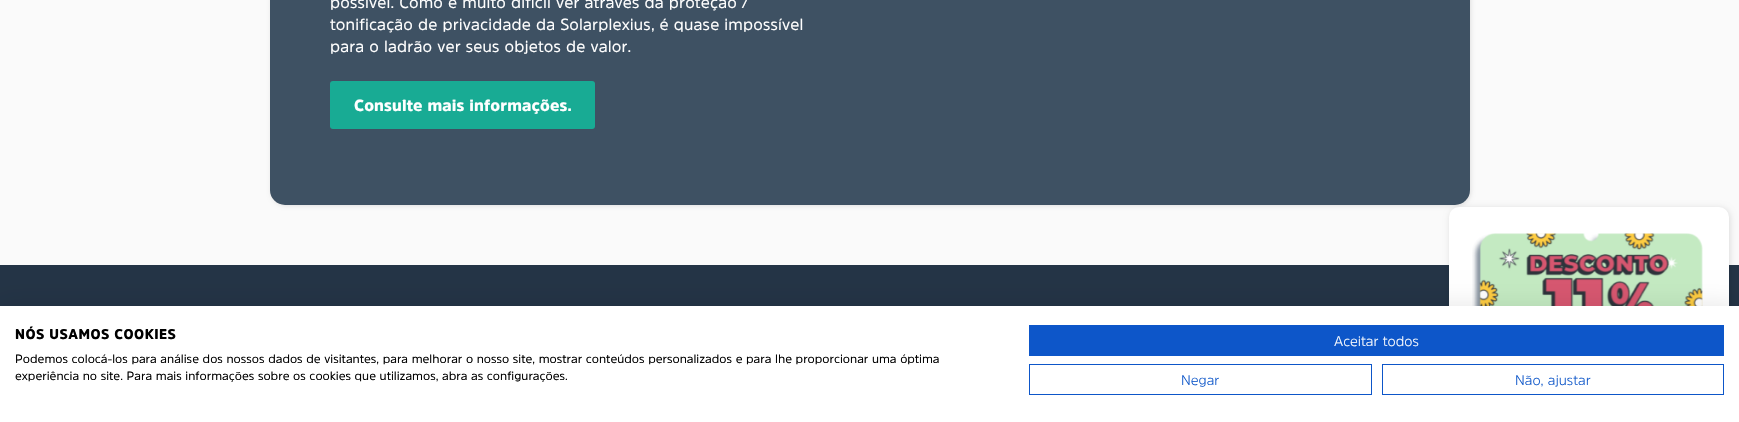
static SkFont makeFont(const char* family, int weight, float size, bool italic = false) {
  SkFontStyle style(weight, SkFontStyle::kNormal_Width,
    italic ? SkFontStyle::kItalic_Slant : SkFontStyle::kUpright_Slant);
  SkFont result(fontMgr->matchFamilyStyle(family, style), size);
  result.setSubpixel(true);
  return result;
}

static void text(SkCanvas* c, const char* s, float x, float y, const SkFont& font, SkColor color) {
  SkPaint ink(SkColor4f::FromColor(color));
  ink.setAntiAlias(true);
  c->drawString(s, x, y, font, ink);
}

static void spacedText(SkCanvas* c, const char* s, float x, float y, const SkFont& font, const SkPaint& ink, float letter, float word) {
  std::vector<SkGlyphID> glyphs(font.countText(s, strlen(s), SkTextEncoding::kUTF8));
  std::vector<float> xs(glyphs.size());
  font.textToGlyphs(s, strlen(s), SkTextEncoding::kUTF8, glyphs);
  font.getXPos(glyphs, xs, x);
  float extra = 0;
  for (size_t i = 0; i < glyphs.size(); i++) {
    xs[i] += extra;
    extra += letter + word * (glyphs[i] == font.unicharToGlyph(' '));
  }
  c->drawTextBlob(SkTextBlob::MakeFromPosHGlyphs(glyphs, xs, y, font), 0, 0, ink);
}

static void box(SkCanvas* c, float l, float t, float r, float b, SkColor color) {
  SkPaint ink(SkColor4f::FromColor(color));
  ink.setAntiAlias(true);
  c->drawRect(SkRect::MakeLTRB(l, t, r, b), ink);
}

static void roundBox(SkCanvas* c, float l, float t, float r, float b, float radius, SkColor color) {
  SkPaint ink(SkColor4f::FromColor(color));
  ink.setAntiAlias(true);
  c->drawRoundRect(SkRect::MakeLTRB(l, t, r, b), radius, radius, ink);
}

static void picture(SkCanvas* c, const char* path, float l, float t, float r, float b) {
  auto image = SkImages::DeferredFromEncodedData(SkData::MakeFromFileName(path));
  c->drawImageRect(image, SkRect::MakeLTRB(l, t, r, b), SkSamplingOptions());
}

void draw(SkCanvas* c) {
  SkPaint paint;
  paint.setAntiAlias(true);
  c->clear(0xfffafafa);
  paint.setColor(0x1a000000);
  paint.setMaskFilter(SkMaskFilter::MakeBlur(kNormal_SkBlurStyle, 2));
  c->drawRoundRect(SkRect::MakeLTRB(271, -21, 1471, 206), 15, 15, paint);
  paint.setMaskFilter(nullptr);
  roundBox(c, 270, -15, 1470, 205, 15, 0xff3e5163);
  SkFont face1 = makeFont("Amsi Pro", 400, 16);
  paint.setColor(0xffffffff);
  spacedText(c, "possível. Como é muito difícil ver através da proteção /", 330, 8, face1, paint, 0.15f, 0);
  spacedText(c, "tonificação de privacidade da Solarplexius, é quase impossível", 330, 30, face1, paint, 0.15f, 0);
  spacedText(c, "para o ladrão ver seus objetos de valor.", 330, 52, face1, paint, 0.15f, 0);
  roundBox(c, 330, 81, 595, 129, 3, 0xff18ab94);
  SkFont face2 = makeFont("Amsi Pro", 800, 16);
  spacedText(c, "Consulte mais informações.", 354, 111, face2, paint, 0.15f, 0);
  box(c, 0, 265, 1739, 306, 0xff243446);
  paint.setColor(0x1f000000);
  paint.setMaskFilter(SkMaskFilter::MakeBlur(kNormal_SkBlurStyle, 3));
  c->drawRoundRect(SkRect::MakeLTRB(1450, 208, 1730, 413), 10, 10, paint);
  paint.setMaskFilter(nullptr);
  roundBox(c, 1449, 207, 1729, 412, 10, 0xffffffff);
  picture(c, "img_01.png", 1472, 233, 1703, 306);
  paint.setColor(0x1a000000);
  paint.setMaskFilter(SkMaskFilter::MakeBlur(kNormal_SkBlurStyle, 12));
  c->drawRect(SkRect::MakeLTRB(0, 306, 1739, 422), paint);
  paint.setMaskFilter(nullptr);
  box(c, 0, 306, 1739, 422, 0xffffffff);
  SkFont face3 = makeFont("Amsi Pro", 800, 14);
  paint.setColor(0xff000000);
  spacedText(c, "NÓS USAMOS COOKIES", 15, 339, face3, paint, 0.5f, 0);
  SkFont face4 = makeFont("Amsi Pro", 400, 12);
  text(c, "Podemos colocá-los para análise dos nossos dados de visitantes, para melhorar o nosso site, mostrar conteúdos personalizados e para lhe proporcionar uma óptima", 15, 363, face4, 0xff000000);
  text(c, "experiência no site. Para mais informações sobre os cookies que utilizamos, abra as configurações.", 15, 380, face4, 0xff000000);
  box(c, 1029, 325, 1724, 356, 0xff0d56c9);
  SkFont face5 = makeFont("Amsi Pro", 300, 14);
  text(c, "Aceitar todos", 1334, 346, face5, 0xffffffff);
  paint.setStyle(SkPaint::kStroke_Style);
  paint.setStrokeWidth(1);
  paint.setColor(0xff0d56c9);
  c->drawRect(SkRect::MakeLTRB(1029.5f, 364.5f, 1371.5f, 394.5f), paint);
  text(c, "Negar", 1181, 385, face5, 0xff0d56c9);
  c->drawRect(SkRect::MakeLTRB(1382.5f, 364.5f, 1723.5f, 394.5f), paint);
  text(c, "Não, ajustar", 1515, 385, face5, 0xff0d56c9);
}
